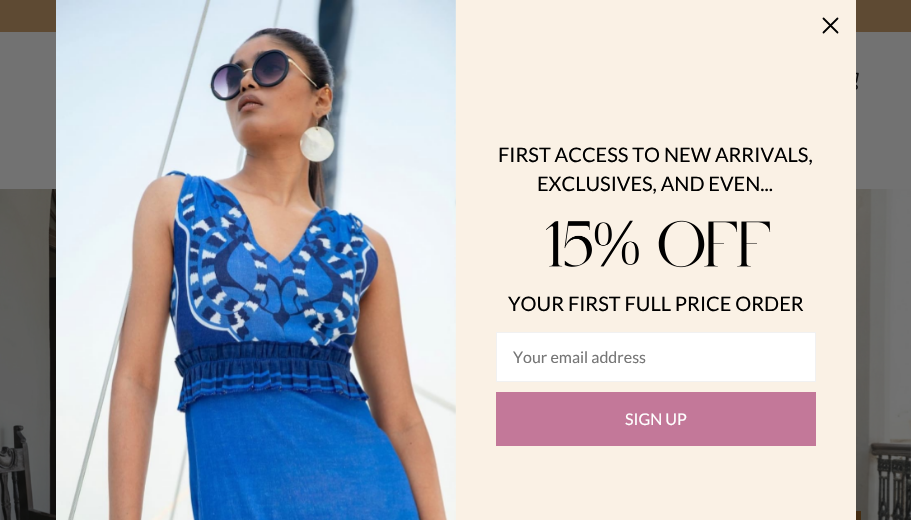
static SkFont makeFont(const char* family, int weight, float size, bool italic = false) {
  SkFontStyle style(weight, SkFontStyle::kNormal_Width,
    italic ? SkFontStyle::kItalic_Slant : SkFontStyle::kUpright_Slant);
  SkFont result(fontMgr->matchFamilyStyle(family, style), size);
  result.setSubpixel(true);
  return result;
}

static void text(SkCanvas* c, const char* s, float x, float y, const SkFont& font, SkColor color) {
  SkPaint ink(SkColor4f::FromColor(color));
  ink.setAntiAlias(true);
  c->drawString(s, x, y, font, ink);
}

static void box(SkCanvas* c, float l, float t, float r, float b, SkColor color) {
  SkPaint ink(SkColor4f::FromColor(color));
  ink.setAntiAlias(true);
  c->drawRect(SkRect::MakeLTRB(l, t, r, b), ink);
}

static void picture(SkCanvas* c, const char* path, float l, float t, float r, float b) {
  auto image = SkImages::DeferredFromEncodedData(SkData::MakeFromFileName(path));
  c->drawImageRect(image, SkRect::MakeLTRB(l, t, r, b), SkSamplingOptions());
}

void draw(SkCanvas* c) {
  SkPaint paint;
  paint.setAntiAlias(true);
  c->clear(0xff727272);
  box(c, 0, 0, 911, 32, 0xff5e4a33);
  picture(c, "img_01.png", 856, 72, 859, 90);
  picture(c, "img_04.png", 0, 189, 911, 520);
  box(c, 455, 0, 856, 520, 0xfffaf1e5);
  paint.setStyle(SkPaint::kStroke_Style);
  paint.setStrokeWidth(1.8f);
  paint.setStrokeCap(SkPaint::kRound_Cap);
  paint.setStrokeJoin(SkPaint::kRound_Join);
  paint.setColor(0xff000000);
  c->drawPath(SkPathBuilder().moveTo(823.5f, 18.5f).lineTo(837.5f, 32.5f).moveTo(823.5f, 32.5f).lineTo(837.5f, 18.5f).close().detach(), paint);
  picture(c, "img_02.png", 56, 0, 456, 520);
  SkFont face1 = makeFont("Lato", 400, 20);
  text(c, "FIRST ACCESS TO NEW ARRIVALS,", 498, 162, face1, 0xff000000);
  text(c, "EXCLUSIVES, AND EVEN...", 537, 191, face1, 0xff000000);
  picture(c, "img_03.png", 546, 220, 771, 268);
  text(c, "YOUR FIRST FULL PRICE ORDER", 508, 311, face1, 0xff000000);
  paint.setStyle(SkPaint::kFill_Style);
  paint.setColor(0xffffffff);
  c->drawRect(SkRect::MakeLTRB(496.5f, 332.5f, 815.5f, 381.5f), paint);
  paint.setStyle(SkPaint::kStroke_Style);
  paint.setStrokeWidth(1);
  paint.setStrokeCap(SkPaint::kButt_Cap);
  paint.setStrokeJoin(SkPaint::kMiter_Join);
  paint.setColor(0xfff1f1f1);
  c->drawRect(SkRect::MakeLTRB(496.5f, 332.5f, 815.5f, 381.5f), paint);
  SkFont face2 = makeFont("Lato", 400, 16);
  text(c, "Your email address", 513, 363, face2, 0xff767676);
  box(c, 496, 392, 816, 446, 0xffc37899);
  text(c, "SIGN UP", 625, 425, face2, 0xffffffff);
  box(c, 856, 511, 861, 520, 0xff442c11);
}
